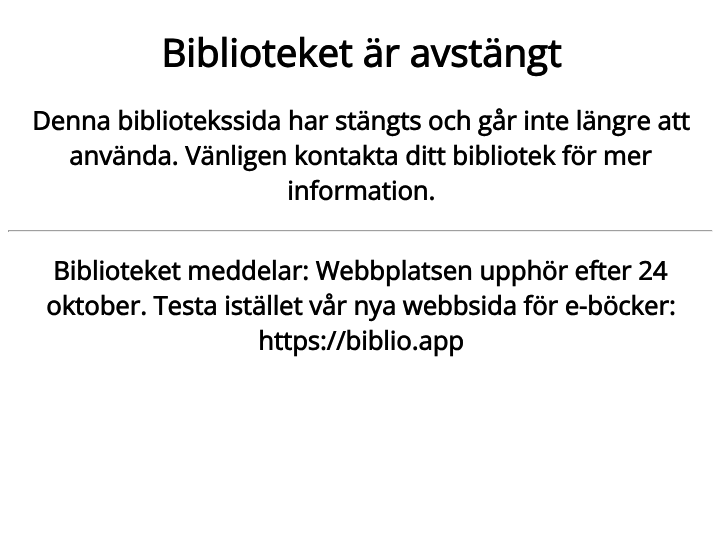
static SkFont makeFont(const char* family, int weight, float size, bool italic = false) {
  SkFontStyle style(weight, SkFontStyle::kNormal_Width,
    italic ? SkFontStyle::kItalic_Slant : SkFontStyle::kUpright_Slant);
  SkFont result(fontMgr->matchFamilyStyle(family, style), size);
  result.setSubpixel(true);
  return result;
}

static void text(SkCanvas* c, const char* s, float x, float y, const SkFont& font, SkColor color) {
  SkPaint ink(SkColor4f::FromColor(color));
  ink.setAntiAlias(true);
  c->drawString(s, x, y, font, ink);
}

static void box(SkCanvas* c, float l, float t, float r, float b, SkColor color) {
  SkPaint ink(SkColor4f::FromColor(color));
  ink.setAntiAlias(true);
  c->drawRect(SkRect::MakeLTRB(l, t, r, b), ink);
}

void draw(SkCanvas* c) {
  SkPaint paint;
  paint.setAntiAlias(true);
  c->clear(0xffffffff);
  SkFont face1 = makeFont("Open Sans", 700, 38.4f);
  text(c, "Biblioteket är avstängt", 161, 67, face1, 0xff000000);
  SkFont face2 = makeFont("Open Sans", 700, 25.6f);
  text(c, "Denna bibliotekssida har stängts och går inte längre att", 32, 130, face2, 0xff000000);
  text(c, "använda. Vänligen kontakta ditt bibliotek för mer", 69, 165, face2, 0xff000000);
  text(c, "information.", 287, 200, face2, 0xff000000);
  box(c, 8, 230, 713, 231, 0xff9f9f9f);
  box(c, 712, 230, 713, 232, 0xffeeeeee);
  box(c, 8, 231, 713, 232, 0xffeeeeee);
  box(c, 8, 230, 9, 232, 0xff9f9f9f);
  text(c, "Biblioteket meddelar: Webbplatsen upphör efter 24", 53, 280, face2, 0xff000000);
  text(c, "oktober. Testa istället vår nya webbsida för e-böcker:", 46, 315, face2, 0xff000000);
  text(c, "https://biblio.app", 258, 350, face2, 0xff000000);
}
